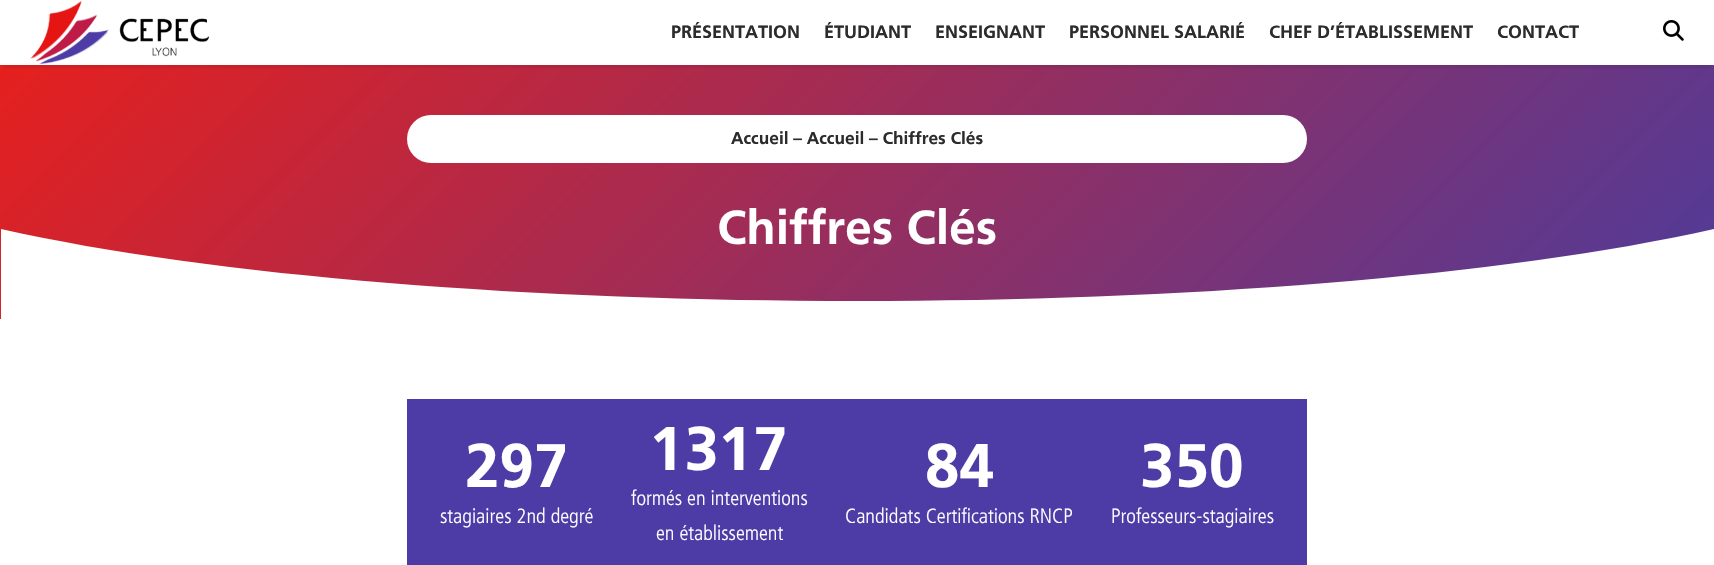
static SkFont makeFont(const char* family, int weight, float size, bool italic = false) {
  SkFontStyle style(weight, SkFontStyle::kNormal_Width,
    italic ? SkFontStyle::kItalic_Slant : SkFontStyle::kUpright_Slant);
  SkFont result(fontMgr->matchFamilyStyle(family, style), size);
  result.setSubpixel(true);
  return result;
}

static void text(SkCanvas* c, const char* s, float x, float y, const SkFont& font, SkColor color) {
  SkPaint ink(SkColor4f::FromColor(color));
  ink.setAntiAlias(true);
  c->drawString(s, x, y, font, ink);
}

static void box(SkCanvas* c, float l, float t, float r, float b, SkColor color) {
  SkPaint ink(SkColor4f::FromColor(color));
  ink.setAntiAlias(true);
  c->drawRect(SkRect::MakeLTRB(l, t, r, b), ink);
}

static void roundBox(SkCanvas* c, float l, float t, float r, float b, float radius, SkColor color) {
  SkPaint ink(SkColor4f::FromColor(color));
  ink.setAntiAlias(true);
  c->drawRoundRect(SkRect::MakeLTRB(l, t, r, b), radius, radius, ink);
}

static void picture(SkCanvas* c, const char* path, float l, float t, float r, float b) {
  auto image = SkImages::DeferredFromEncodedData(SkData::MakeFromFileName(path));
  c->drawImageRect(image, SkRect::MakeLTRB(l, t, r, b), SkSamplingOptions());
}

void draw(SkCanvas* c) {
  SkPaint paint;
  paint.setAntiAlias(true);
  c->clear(0xffffffff);
  {
    const SkColor colors[] = {0xffe5201e, 0xff4e3b9a};
    const float stops[] = {0, 1};
    const SkPoint ends[] = {{365, -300}, {1349, 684}};
    paint.setShader(SkGradientShader::MakeLinear(ends, colors, stops, 2, SkTileMode::kClamp));
    paint.setAlpha(255);
  }
  c->drawRect(SkRect::MakeLTRB(0, 65, 1714, 319), paint);
  c->save();
  c->clipRect(SkRect::MakeLTRB(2, 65, 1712, 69));
  paint.setShader(nullptr);
  paint.setColor(0x1a000000);
  paint.setMaskFilter(SkMaskFilter::MakeBlur(kNormal_SkBlurStyle, 2.5f));
  c->drawRect(SkRect::MakeLTRB(3, 8, 1711, 67), paint);
  paint.setMaskFilter(nullptr);
  c->restore();
  picture(c, "img_01.png", 30, 0, 210, 65);
  SkFont face1 = makeFont("Frutiger", 700, 18);
  text(c, "PRÉSENTATION", 671, 38, face1, 0xff2c2c2c);
  text(c, "ÉTUDIANT", 824, 38, face1, 0xff2c2c2c);
  text(c, "ENSEIGNANT", 935, 38, face1, 0xff2c2c2c);
  text(c, "PERSONNEL SALARIÉ", 1069, 38, face1, 0xff2c2c2c);
  text(c, "CHEF D’ÉTABLISSEMENT", 1269, 38, face1, 0xff2c2c2c);
  text(c, "CONTACT", 1497, 38, face1, 0xff2c2c2c);
  picture(c, "img_02.png", 1663, 20, 1684, 41);
  roundBox(c, 407, 115, 1307, 163, 24, 0xffffffff);
  SkFont face2 = makeFont("Frutiger", 700, 17.25f);
  text(c, "Accueil – Accueil – Chiffres Clés", 731, 144, face2, 0xff2c2c2c);
  SkFont face3 = makeFont("Frutiger", 700, 48);
  text(c, "Chiffres Clés", 717, 244, face3, 0xffffffff);
  c->save();
  c->clipRect(SkRect::MakeLTRB(0, 162, 1714, 319));
  paint.setColor(0xffffffff);
  c->drawPath(SkPathBuilder().moveTo(1714, 229).cubicTo(1286, 325, 429, 325, 1, 229).lineTo(1, 320).lineTo(1714, 320).lineTo(1714, 182).close().detach(), paint);
  c->restore();
  box(c, 407, 399, 1307, 565, 0xff4d3ca6);
  SkFont face4 = makeFont("Frutiger", 700, 62);
  text(c, "297", 465, 487, face4, 0xffffffff);
  SkFont face5 = makeFont("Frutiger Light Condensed", 300, 20.75f);
  text(c, "stagiaires 2nd degré", 440, 523, face5, 0xffffffff);
  text(c, "1317", 650, 470, face4, 0xffffffff);
  text(c, "formés en interventions", 631, 505, face5, 0xffffffff);
  text(c, "en établissement", 656, 540, face5, 0xffffffff);
  text(c, "84", 925, 487, face4, 0xffffffff);
  text(c, "Candidats Certifications RNCP", 845, 523, face5, 0xffffffff);
  text(c, "350", 1140, 487, face4, 0xffffffff);
  text(c, "Professeurs-stagiaires", 1111, 523, face5, 0xffffffff);
}
